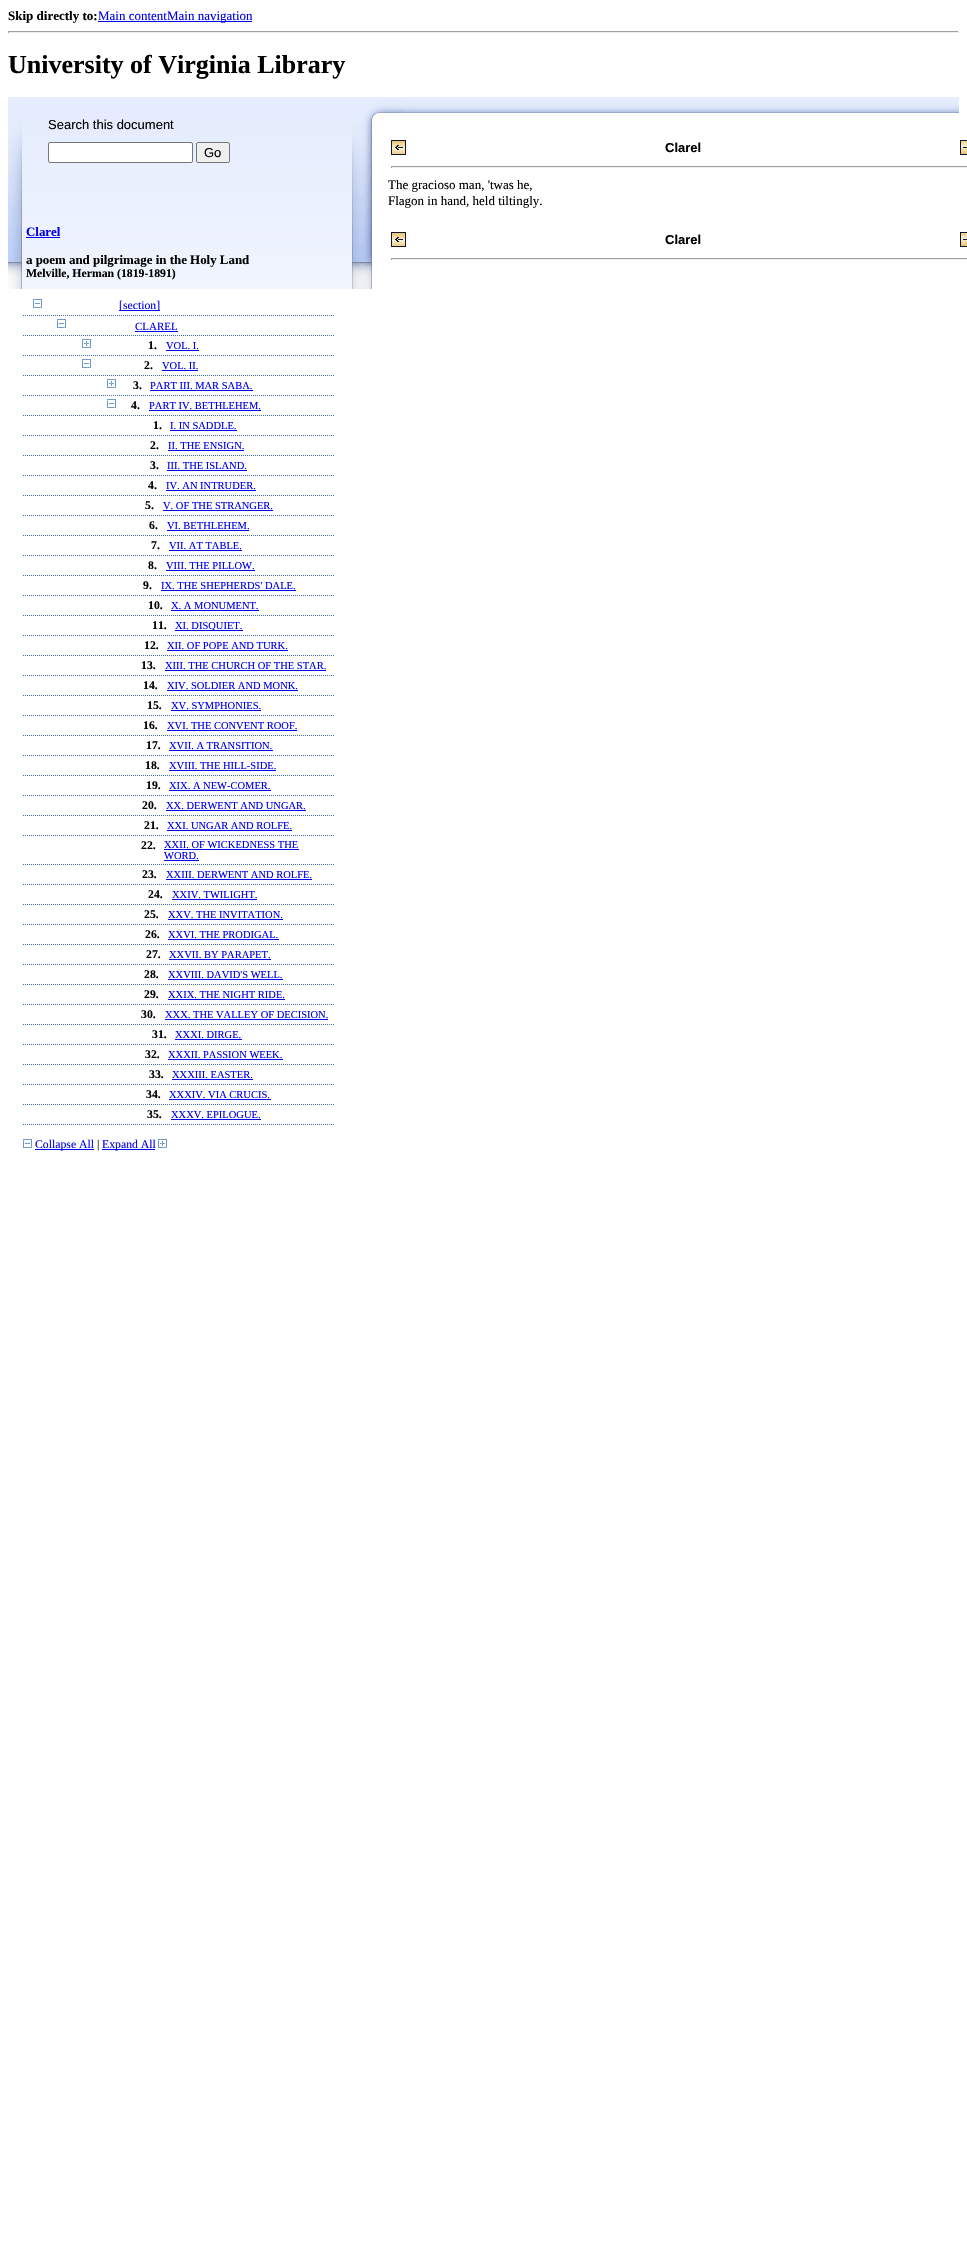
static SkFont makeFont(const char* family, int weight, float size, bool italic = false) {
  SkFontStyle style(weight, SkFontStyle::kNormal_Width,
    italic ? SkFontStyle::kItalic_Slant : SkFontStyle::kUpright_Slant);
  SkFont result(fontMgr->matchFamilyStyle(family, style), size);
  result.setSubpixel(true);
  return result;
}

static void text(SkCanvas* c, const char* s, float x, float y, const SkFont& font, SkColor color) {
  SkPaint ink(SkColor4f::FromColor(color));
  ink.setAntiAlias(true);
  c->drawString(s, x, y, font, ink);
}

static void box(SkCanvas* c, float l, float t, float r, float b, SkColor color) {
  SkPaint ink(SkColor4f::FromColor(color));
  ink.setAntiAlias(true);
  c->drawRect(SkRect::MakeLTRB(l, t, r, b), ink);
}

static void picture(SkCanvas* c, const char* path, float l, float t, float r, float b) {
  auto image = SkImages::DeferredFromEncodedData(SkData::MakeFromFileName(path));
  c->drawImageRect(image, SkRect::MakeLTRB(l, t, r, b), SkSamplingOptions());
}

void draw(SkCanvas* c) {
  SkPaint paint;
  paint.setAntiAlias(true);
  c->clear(0xffffffff);
  SkFont face1 = makeFont("Liberation Serif", 700, 13);
  text(c, "Skip directly to:", 8, 20, face1, 0xff000000);
  box(c, 98, 21, 252, 22, 0xff0000ee);
  SkFont face2 = makeFont("Liberation Serif", 400, 13);
  text(c, "Main contentMain navigation", 98, 20, face2, 0xff0000ee);
  box(c, 8, 31, 959, 32, 0xff9f9f9f);
  box(c, 958, 31, 959, 33, 0xffeeeeee);
  box(c, 8, 32, 959, 33, 0xffeeeeee);
  box(c, 8, 31, 9, 33, 0xff9f9f9f);
  SkFont face3 = makeFont("Liberation Serif", 700, 26);
  text(c, "University of Virginia Library", 8, 73, face3, 0xff000000);
  picture(c, "img_01.png", 8, 97, 959, 289);
  SkFont face4 = makeFont("Liberation Sans", 400, 13);
  text(c, "Search this document", 48, 129, face4, 0xff000000);
  paint.setColor(0xffffffff);
  c->drawRoundRect(SkRect::MakeLTRB(48.5f, 142.5f, 192.5f, 162.5f), 1.5f, 1.5f, paint);
  paint.setStyle(SkPaint::kStroke_Style);
  paint.setStrokeWidth(1);
  paint.setColor(0xff767676);
  c->drawRoundRect(SkRect::MakeLTRB(48.5f, 142.5f, 192.5f, 162.5f), 1.5f, 1.5f, paint);
  paint.setStyle(SkPaint::kFill_Style);
  paint.setColor(0xffefefef);
  c->drawRoundRect(SkRect::MakeLTRB(196.5f, 142.5f, 229.5f, 162.5f), 1.5f, 1.5f, paint);
  paint.setStyle(SkPaint::kStroke_Style);
  paint.setColor(0xff767676);
  c->drawRoundRect(SkRect::MakeLTRB(196.5f, 142.5f, 229.5f, 162.5f), 1.5f, 1.5f, paint);
  text(c, "Go", 204, 157, face4, 0xff000000);
  SkFont face5 = makeFont("Liberation Serif", 700, 12.9f);
  text(c, "Clarel", 26, 236, face5, 0xff0000ee);
  box(c, 26, 237, 60, 238, 0xff0000ee);
  text(c, "a poem and pilgrimage in the Holy Land", 26, 264, face5, 0xff000000);
  SkFont face6 = makeFont("Liberation Serif", 700, 11.75f);
  text(c, "Melville, Herman (1819-1891)", 26, 277, face6, 0xff000000);
  paint.setColor(0xff3f6dad);
  paint.setPathEffect(SkDashPathEffect::Make({{1, 1}}, 0));
  c->drawPath(SkPathBuilder().moveTo(23, 315.5f).lineTo(334, 315.5f).detach(), paint);
  paint.setPathEffect(nullptr);
  picture(c, "img_02.png", 33, 299, 42, 308);
  box(c, 119, 310, 160, 311, 0xff0000ee);
  SkFont face7 = makeFont("Liberation Serif", 400, 11.75f);
  text(c, "[section]", 119, 309, face7, 0xff0000ee);
  paint.setPathEffect(SkDashPathEffect::Make({{1, 1}}, 0));
  c->drawPath(SkPathBuilder().moveTo(23, 335.5f).lineTo(334, 335.5f).detach(), paint);
  paint.setPathEffect(nullptr);
  picture(c, "img_02.png", 57, 319, 66, 328);
  SkFont face8 = makeFont("Liberation Serif", 400, 11);
  text(c, "CLAREL", 135, 330, face8, 0xff0000ee);
  box(c, 135, 331, 178, 332, 0xff0000ee);
  paint.setPathEffect(SkDashPathEffect::Make({{1, 1}}, 0));
  c->drawPath(SkPathBuilder().moveTo(23, 355.5f).lineTo(334, 355.5f).detach(), paint);
  paint.setPathEffect(nullptr);
  picture(c, "img_03.png", 82, 339, 91, 348);
  text(c, "1.", 148, 349, face6, 0xff000000);
  SkFont face9 = makeFont("Liberation Serif", 400, 10.5f);
  text(c, "VOL. I.", 166, 349, face9, 0xff0000ee);
  box(c, 166, 350, 199, 351, 0xff0000ee);
  paint.setPathEffect(SkDashPathEffect::Make({{1, 1}}, 0));
  c->drawPath(SkPathBuilder().moveTo(23, 375.5f).lineTo(334, 375.5f).detach(), paint);
  paint.setPathEffect(nullptr);
  picture(c, "img_02.png", 82, 359, 91, 368);
  text(c, "2.", 144, 369, face6, 0xff000000);
  text(c, "VOL. II.", 162, 369, face9, 0xff0000ee);
  box(c, 162, 370, 198, 371, 0xff0000ee);
  paint.setPathEffect(SkDashPathEffect::Make({{1, 1}}, 0));
  c->drawPath(SkPathBuilder().moveTo(23, 395.5f).lineTo(334, 395.5f).detach(), paint);
  paint.setPathEffect(nullptr);
  picture(c, "img_03.png", 107, 379, 116, 388);
  text(c, "3.", 133, 389, face6, 0xff000000);
  text(c, "PART III. MAR SABA.", 150, 389, face9, 0xff0000ee);
  box(c, 150, 390, 253, 391, 0xff0000ee);
  paint.setPathEffect(SkDashPathEffect::Make({{1, 1}}, 0));
  c->drawPath(SkPathBuilder().moveTo(23, 415.5f).lineTo(334, 415.5f).detach(), paint);
  paint.setPathEffect(nullptr);
  picture(c, "img_02.png", 107, 399, 116, 408);
  text(c, "4.", 131, 409, face6, 0xff000000);
  text(c, "PART IV. BETHLEHEM.", 149, 409, face9, 0xff0000ee);
  box(c, 149, 410, 261, 411, 0xff0000ee);
  paint.setPathEffect(SkDashPathEffect::Make({{1, 1}}, 0));
  c->drawPath(SkPathBuilder().moveTo(23, 435.5f).lineTo(334, 435.5f).detach(), paint);
  paint.setPathEffect(nullptr);
  text(c, "1.", 153, 429, face6, 0xff000000);
  text(c, "I. IN SADDLE.", 170, 429, face9, 0xff0000ee);
  box(c, 170, 430, 237, 431, 0xff0000ee);
  paint.setPathEffect(SkDashPathEffect::Make({{1, 1}}, 0));
  c->drawPath(SkPathBuilder().moveTo(23, 455.5f).lineTo(334, 455.5f).detach(), paint);
  paint.setPathEffect(nullptr);
  text(c, "2.", 150, 449, face6, 0xff000000);
  text(c, "II. THE ENSIGN.", 168, 449, face9, 0xff0000ee);
  box(c, 168, 450, 244, 451, 0xff0000ee);
  paint.setPathEffect(SkDashPathEffect::Make({{1, 1}}, 0));
  c->drawPath(SkPathBuilder().moveTo(23, 475.5f).lineTo(334, 475.5f).detach(), paint);
  paint.setPathEffect(nullptr);
  text(c, "3.", 150, 469, face6, 0xff000000);
  text(c, "III. THE ISLAND.", 167, 469, face9, 0xff0000ee);
  box(c, 167, 470, 247, 471, 0xff0000ee);
  paint.setPathEffect(SkDashPathEffect::Make({{1, 1}}, 0));
  c->drawPath(SkPathBuilder().moveTo(23, 495.5f).lineTo(334, 495.5f).detach(), paint);
  paint.setPathEffect(nullptr);
  text(c, "4.", 148, 489, face6, 0xff000000);
  text(c, "IV. AN INTRUDER.", 166, 489, face9, 0xff0000ee);
  box(c, 166, 490, 256, 491, 0xff0000ee);
  paint.setPathEffect(SkDashPathEffect::Make({{1, 1}}, 0));
  c->drawPath(SkPathBuilder().moveTo(23, 515.5f).lineTo(334, 515.5f).detach(), paint);
  paint.setPathEffect(nullptr);
  text(c, "5.", 145, 509, face6, 0xff000000);
  text(c, "V. OF THE STRANGER.", 163, 509, face9, 0xff0000ee);
  box(c, 163, 510, 273, 511, 0xff0000ee);
  paint.setPathEffect(SkDashPathEffect::Make({{1, 1}}, 0));
  c->drawPath(SkPathBuilder().moveTo(23, 535.5f).lineTo(334, 535.5f).detach(), paint);
  paint.setPathEffect(nullptr);
  text(c, "6.", 149, 529, face6, 0xff000000);
  text(c, "VI. BETHLEHEM.", 167, 529, face9, 0xff0000ee);
  box(c, 167, 530, 249, 531, 0xff0000ee);
  paint.setPathEffect(SkDashPathEffect::Make({{1, 1}}, 0));
  c->drawPath(SkPathBuilder().moveTo(23, 555.5f).lineTo(334, 555.5f).detach(), paint);
  paint.setPathEffect(nullptr);
  text(c, "7.", 151, 549, face6, 0xff000000);
  text(c, "VII. AT TABLE.", 169, 549, face9, 0xff0000ee);
  box(c, 169, 550, 242, 551, 0xff0000ee);
  paint.setPathEffect(SkDashPathEffect::Make({{1, 1}}, 0));
  c->drawPath(SkPathBuilder().moveTo(23, 575.5f).lineTo(334, 575.5f).detach(), paint);
  paint.setPathEffect(nullptr);
  text(c, "8.", 148, 569, face6, 0xff000000);
  text(c, "VIII. THE PILLOW.", 166, 569, face9, 0xff0000ee);
  box(c, 166, 570, 255, 571, 0xff0000ee);
  paint.setPathEffect(SkDashPathEffect::Make({{1, 1}}, 0));
  c->drawPath(SkPathBuilder().moveTo(23, 595.5f).lineTo(334, 595.5f).detach(), paint);
  paint.setPathEffect(nullptr);
  text(c, "9.", 143, 589, face6, 0xff000000);
  text(c, "IX. THE SHEPHERDS' DALE.", 161, 589, face9, 0xff0000ee);
  box(c, 161, 590, 296, 591, 0xff0000ee);
  paint.setPathEffect(SkDashPathEffect::Make({{1, 1}}, 0));
  c->drawPath(SkPathBuilder().moveTo(23, 615.5f).lineTo(334, 615.5f).detach(), paint);
  paint.setPathEffect(nullptr);
  text(c, "10.", 148, 609, face6, 0xff000000);
  text(c, "X. A MONUMENT.", 171, 609, face9, 0xff0000ee);
  box(c, 171, 610, 259, 611, 0xff0000ee);
  paint.setPathEffect(SkDashPathEffect::Make({{1, 1}}, 0));
  c->drawPath(SkPathBuilder().moveTo(23, 635.5f).lineTo(334, 635.5f).detach(), paint);
  paint.setPathEffect(nullptr);
  text(c, "11.", 152, 629, face6, 0xff000000);
  box(c, 175, 630, 243, 631, 0xff0000ee);
  text(c, "XI. DISQUIET.", 175, 629, face9, 0xff0000ee);
  paint.setPathEffect(SkDashPathEffect::Make({{1, 1}}, 0));
  c->drawPath(SkPathBuilder().moveTo(23, 655.5f).lineTo(334, 655.5f).detach(), paint);
  paint.setPathEffect(nullptr);
  text(c, "12.", 144, 649, face6, 0xff000000);
  text(c, "XII. OF POPE AND TURK.", 167, 649, face9, 0xff0000ee);
  box(c, 167, 650, 288, 651, 0xff0000ee);
  paint.setPathEffect(SkDashPathEffect::Make({{1, 1}}, 0));
  c->drawPath(SkPathBuilder().moveTo(23, 675.5f).lineTo(334, 675.5f).detach(), paint);
  paint.setPathEffect(nullptr);
  text(c, "13.", 141, 669, face6, 0xff000000);
  text(c, "XIII. THE CHURCH OF THE STAR.", 165, 669, face9, 0xff0000ee);
  box(c, 165, 670, 326, 671, 0xff0000ee);
  paint.setPathEffect(SkDashPathEffect::Make({{1, 1}}, 0));
  c->drawPath(SkPathBuilder().moveTo(23, 695.5f).lineTo(334, 695.5f).detach(), paint);
  paint.setPathEffect(nullptr);
  text(c, "14.", 143, 689, face6, 0xff000000);
  text(c, "XIV. SOLDIER AND MONK.", 167, 689, face9, 0xff0000ee);
  box(c, 167, 690, 298, 691, 0xff0000ee);
  paint.setPathEffect(SkDashPathEffect::Make({{1, 1}}, 0));
  c->drawPath(SkPathBuilder().moveTo(23, 715.5f).lineTo(334, 715.5f).detach(), paint);
  paint.setPathEffect(nullptr);
  text(c, "15.", 147, 709, face6, 0xff000000);
  text(c, "XV. SYMPHONIES.", 171, 709, face9, 0xff0000ee);
  box(c, 171, 710, 261, 711, 0xff0000ee);
  paint.setPathEffect(SkDashPathEffect::Make({{1, 1}}, 0));
  c->drawPath(SkPathBuilder().moveTo(23, 735.5f).lineTo(334, 735.5f).detach(), paint);
  paint.setPathEffect(nullptr);
  text(c, "16.", 143, 729, face6, 0xff000000);
  text(c, "XVI. THE CONVENT ROOF.", 167, 729, face9, 0xff0000ee);
  box(c, 167, 730, 297, 731, 0xff0000ee);
  paint.setPathEffect(SkDashPathEffect::Make({{1, 1}}, 0));
  c->drawPath(SkPathBuilder().moveTo(23, 755.5f).lineTo(334, 755.5f).detach(), paint);
  paint.setPathEffect(nullptr);
  text(c, "17.", 146, 749, face6, 0xff000000);
  text(c, "XVII. A TRANSITION.", 169, 749, face9, 0xff0000ee);
  box(c, 169, 750, 273, 751, 0xff0000ee);
  paint.setPathEffect(SkDashPathEffect::Make({{1, 1}}, 0));
  c->drawPath(SkPathBuilder().moveTo(23, 775.5f).lineTo(334, 775.5f).detach(), paint);
  paint.setPathEffect(nullptr);
  text(c, "18.", 145, 769, face6, 0xff000000);
  text(c, "XVIII. THE HILL-SIDE.", 169, 769, face9, 0xff0000ee);
  box(c, 169, 770, 276, 771, 0xff0000ee);
  paint.setPathEffect(SkDashPathEffect::Make({{1, 1}}, 0));
  c->drawPath(SkPathBuilder().moveTo(23, 795.5f).lineTo(334, 795.5f).detach(), paint);
  paint.setPathEffect(nullptr);
  text(c, "19.", 146, 789, face6, 0xff000000);
  text(c, "XIX. A NEW-COMER.", 169, 789, face9, 0xff0000ee);
  box(c, 169, 790, 271, 791, 0xff0000ee);
  paint.setPathEffect(SkDashPathEffect::Make({{1, 1}}, 0));
  c->drawPath(SkPathBuilder().moveTo(23, 815.5f).lineTo(334, 815.5f).detach(), paint);
  paint.setPathEffect(nullptr);
  text(c, "20.", 142, 809, face6, 0xff000000);
  text(c, "XX. DERWENT AND UNGAR.", 166, 809, face9, 0xff0000ee);
  box(c, 166, 810, 306, 811, 0xff0000ee);
  paint.setPathEffect(SkDashPathEffect::Make({{1, 1}}, 0));
  c->drawPath(SkPathBuilder().moveTo(23, 835.5f).lineTo(334, 835.5f).detach(), paint);
  paint.setPathEffect(nullptr);
  text(c, "21.", 144, 829, face6, 0xff000000);
  text(c, "XXI. UNGAR AND ROLFE.", 167, 829, face9, 0xff0000ee);
  box(c, 167, 830, 292, 831, 0xff0000ee);
  paint.setPathEffect(SkDashPathEffect::Make({{1, 1}}, 0));
  c->drawPath(SkPathBuilder().moveTo(23, 864.5f).lineTo(334, 864.5f).detach(), paint);
  paint.setPathEffect(nullptr);
  text(c, "22.", 141, 849, face6, 0xff000000);
  text(c, "XXII. OF WICKEDNESS THE", 164, 848, face9, 0xff0000ee);
  box(c, 164, 849, 299, 850, 0xff0000ee);
  text(c, "WORD.", 164, 859, face9, 0xff0000ee);
  box(c, 164, 860, 199, 861, 0xff0000ee);
  paint.setPathEffect(SkDashPathEffect::Make({{1, 1}}, 0));
  c->drawPath(SkPathBuilder().moveTo(23, 884.5f).lineTo(334, 884.5f).detach(), paint);
  paint.setPathEffect(nullptr);
  text(c, "23.", 142, 878, face6, 0xff000000);
  text(c, "XXIII. DERWENT AND ROLFE.", 166, 878, face9, 0xff0000ee);
  box(c, 166, 879, 312, 880, 0xff0000ee);
  paint.setPathEffect(SkDashPathEffect::Make({{1, 1}}, 0));
  c->drawPath(SkPathBuilder().moveTo(23, 904.5f).lineTo(334, 904.5f).detach(), paint);
  paint.setPathEffect(nullptr);
  text(c, "24.", 148, 898, face6, 0xff000000);
  text(c, "XXIV. TWILIGHT.", 172, 898, face9, 0xff0000ee);
  box(c, 172, 899, 257, 900, 0xff0000ee);
  paint.setPathEffect(SkDashPathEffect::Make({{1, 1}}, 0));
  c->drawPath(SkPathBuilder().moveTo(23, 924.5f).lineTo(334, 924.5f).detach(), paint);
  paint.setPathEffect(nullptr);
  text(c, "25.", 144, 918, face6, 0xff000000);
  text(c, "XXV. THE INVITATION.", 168, 918, face9, 0xff0000ee);
  box(c, 168, 919, 283, 920, 0xff0000ee);
  paint.setPathEffect(SkDashPathEffect::Make({{1, 1}}, 0));
  c->drawPath(SkPathBuilder().moveTo(23, 944.5f).lineTo(334, 944.5f).detach(), paint);
  paint.setPathEffect(nullptr);
  text(c, "26.", 145, 938, face6, 0xff000000);
  text(c, "XXVI. THE PRODIGAL.", 168, 938, face9, 0xff0000ee);
  box(c, 168, 939, 279, 940, 0xff0000ee);
  paint.setPathEffect(SkDashPathEffect::Make({{1, 1}}, 0));
  c->drawPath(SkPathBuilder().moveTo(23, 964.5f).lineTo(334, 964.5f).detach(), paint);
  paint.setPathEffect(nullptr);
  text(c, "27.", 146, 958, face6, 0xff000000);
  text(c, "XXVII. BY PARAPET.", 169, 958, face9, 0xff0000ee);
  box(c, 169, 959, 271, 960, 0xff0000ee);
  paint.setPathEffect(SkDashPathEffect::Make({{1, 1}}, 0));
  c->drawPath(SkPathBuilder().moveTo(23, 984.5f).lineTo(334, 984.5f).detach(), paint);
  paint.setPathEffect(nullptr);
  text(c, "28.", 144, 978, face6, 0xff000000);
  text(c, "XXVIII. DAVID'S WELL.", 168, 978, face9, 0xff0000ee);
  box(c, 168, 979, 283, 980, 0xff0000ee);
  paint.setPathEffect(SkDashPathEffect::Make({{1, 1}}, 0));
  c->drawPath(SkPathBuilder().moveTo(23, 1004.5f).lineTo(334, 1004.5f).detach(), paint);
  paint.setPathEffect(nullptr);
  text(c, "29.", 144, 998, face6, 0xff000000);
  text(c, "XXIX. THE NIGHT RIDE.", 168, 998, face9, 0xff0000ee);
  box(c, 168, 999, 285, 1000, 0xff0000ee);
  paint.setPathEffect(SkDashPathEffect::Make({{1, 1}}, 0));
  c->drawPath(SkPathBuilder().moveTo(23, 1024.5f).lineTo(334, 1024.5f).detach(), paint);
  paint.setPathEffect(nullptr);
  text(c, "30.", 141, 1018, face6, 0xff000000);
  text(c, "XXX. THE VALLEY OF DECISION.", 165, 1018, face9, 0xff0000ee);
  box(c, 165, 1019, 328, 1020, 0xff0000ee);
  paint.setPathEffect(SkDashPathEffect::Make({{1, 1}}, 0));
  c->drawPath(SkPathBuilder().moveTo(23, 1044.5f).lineTo(334, 1044.5f).detach(), paint);
  paint.setPathEffect(nullptr);
  text(c, "31.", 152, 1038, face6, 0xff000000);
  text(c, "XXXI. DIRGE.", 175, 1038, face9, 0xff0000ee);
  box(c, 175, 1039, 242, 1040, 0xff0000ee);
  paint.setPathEffect(SkDashPathEffect::Make({{1, 1}}, 0));
  c->drawPath(SkPathBuilder().moveTo(23, 1064.5f).lineTo(334, 1064.5f).detach(), paint);
  paint.setPathEffect(nullptr);
  text(c, "32.", 145, 1058, face6, 0xff000000);
  text(c, "XXXII. PASSION WEEK.", 168, 1058, face9, 0xff0000ee);
  box(c, 168, 1059, 283, 1060, 0xff0000ee);
  paint.setPathEffect(SkDashPathEffect::Make({{1, 1}}, 0));
  c->drawPath(SkPathBuilder().moveTo(23, 1084.5f).lineTo(334, 1084.5f).detach(), paint);
  paint.setPathEffect(nullptr);
  text(c, "33.", 149, 1078, face6, 0xff000000);
  text(c, "XXXIII. EASTER.", 172, 1078, face9, 0xff0000ee);
  box(c, 172, 1079, 253, 1080, 0xff0000ee);
  paint.setPathEffect(SkDashPathEffect::Make({{1, 1}}, 0));
  c->drawPath(SkPathBuilder().moveTo(23, 1104.5f).lineTo(334, 1104.5f).detach(), paint);
  paint.setPathEffect(nullptr);
  text(c, "34.", 146, 1098, face6, 0xff000000);
  text(c, "XXXIV. VIA CRUCIS.", 169, 1098, face9, 0xff0000ee);
  box(c, 169, 1099, 271, 1100, 0xff0000ee);
  paint.setPathEffect(SkDashPathEffect::Make({{1, 1}}, 0));
  c->drawPath(SkPathBuilder().moveTo(23, 1124.5f).lineTo(334, 1124.5f).detach(), paint);
  paint.setPathEffect(nullptr);
  text(c, "35.", 147, 1118, face6, 0xff000000);
  text(c, "XXXV. EPILOGUE.", 171, 1118, face9, 0xff0000ee);
  box(c, 171, 1119, 261, 1120, 0xff0000ee);
  picture(c, "img_02.png", 23, 1139, 32, 1148);
  box(c, 35, 1149, 94, 1150, 0xff0000ee);
  text(c, "Collapse All", 35, 1148, face7, 0xff0000ee);
  text(c, "|", 97, 1148, face7, 0xff000000);
  box(c, 102, 1149, 155, 1150, 0xff0000ee);
  text(c, "Expand All", 102, 1148, face7, 0xff0000ee);
  picture(c, "img_03.png", 158, 1139, 167, 1148);
  picture(c, "img_04.png", 391, 140, 406, 155);
  SkFont face10 = makeFont("Liberation Sans", 700, 13);
  text(c, "Clarel", 665, 152, face10, 0xff000000);
  picture(c, "img_05.png", 960, 140, 967, 155);
  box(c, 391, 166, 967, 167, 0xff9f9f9f);
  box(c, 391, 167, 967, 168, 0xffeeeeee);
  box(c, 391, 166, 392, 168, 0xff9f9f9f);
  text(c, "The gracioso man, 'twas he,", 388, 189, face2, 0xff000000);
  text(c, "Flagon in hand, held tiltingly.", 388, 205, face2, 0xff000000);
  picture(c, "img_04.png", 391, 232, 406, 247);
  text(c, "Clarel", 665, 244, face10, 0xff000000);
  picture(c, "img_05.png", 960, 232, 967, 247);
  box(c, 391, 258, 967, 259, 0xff9f9f9f);
  box(c, 391, 259, 967, 260, 0xffeeeeee);
  box(c, 391, 258, 392, 260, 0xff9f9f9f);
}
